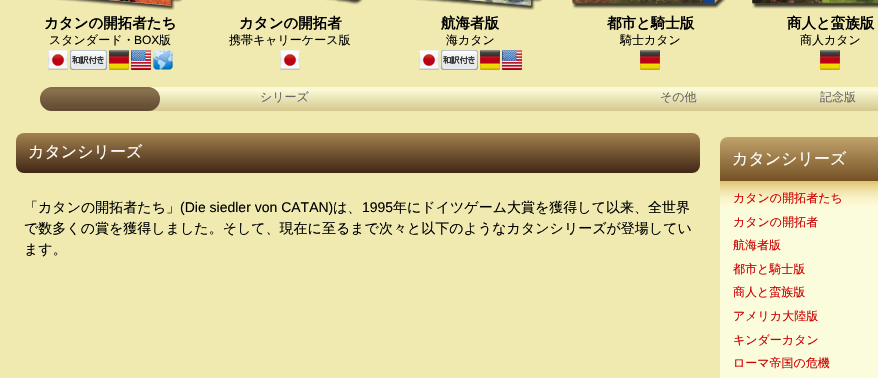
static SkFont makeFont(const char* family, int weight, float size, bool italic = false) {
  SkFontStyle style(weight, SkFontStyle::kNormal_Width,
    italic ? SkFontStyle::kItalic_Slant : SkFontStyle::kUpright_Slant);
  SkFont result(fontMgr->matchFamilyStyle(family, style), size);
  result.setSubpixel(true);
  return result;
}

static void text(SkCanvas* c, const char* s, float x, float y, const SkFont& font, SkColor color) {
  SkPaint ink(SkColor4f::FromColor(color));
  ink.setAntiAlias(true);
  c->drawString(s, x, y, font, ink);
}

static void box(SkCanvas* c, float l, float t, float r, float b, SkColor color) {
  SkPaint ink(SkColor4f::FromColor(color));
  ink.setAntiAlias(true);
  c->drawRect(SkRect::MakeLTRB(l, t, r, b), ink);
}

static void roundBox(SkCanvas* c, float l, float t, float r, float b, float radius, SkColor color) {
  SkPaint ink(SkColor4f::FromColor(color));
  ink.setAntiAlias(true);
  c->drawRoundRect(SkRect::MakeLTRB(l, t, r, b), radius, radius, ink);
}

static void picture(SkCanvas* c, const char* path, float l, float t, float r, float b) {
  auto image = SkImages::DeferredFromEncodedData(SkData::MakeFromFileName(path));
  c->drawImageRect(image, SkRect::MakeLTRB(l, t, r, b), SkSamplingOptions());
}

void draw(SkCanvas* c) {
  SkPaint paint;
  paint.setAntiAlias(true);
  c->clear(0xfff0eab0);
  picture(c, "img_01.png", 57, 0, 183, 10);
  SkFont face1 = makeFont("WenQuanYi Zen Hei", 700, 14.5f);
  text(c, "カタンの開拓者たち", 44, 28, face1, 0xff000000);
  SkFont face2 = makeFont("WenQuanYi Zen Hei", 500, 12);
  text(c, "スタンダード・", 49, 44, face2, 0xff000000);
  SkFont face3 = makeFont("Liberation Sans", 400, 12);
  text(c, "BOX", 134, 44, face3, 0xff000000);
  text(c, "版", 159, 44, face2, 0xff000000);
  picture(c, "img_02.png", 48, 50, 68, 70);
  picture(c, "img_03.png", 70, 50, 107, 70);
  picture(c, "img_04.png", 109, 50, 129, 70);
  picture(c, "img_05.png", 131, 50, 151, 70);
  picture(c, "img_06.png", 153, 50, 173, 70);
  picture(c, "img_07.png", 326, 0, 363, 5);
  text(c, "カタンの開拓者", 239, 28, face1, 0xff000000);
  text(c, "携帯キャリーケース版", 229, 44, face2, 0xff000000);
  picture(c, "img_02.png", 280, 50, 300, 70);
  picture(c, "img_08.png", 415, 0, 543, 10);
  text(c, "航海者版", 441, 28, face1, 0xff000000);
  text(c, "海カタン", 446, 44, face2, 0xff000000);
  picture(c, "img_02.png", 419, 50, 439, 70);
  picture(c, "img_03.png", 441, 50, 478, 70);
  picture(c, "img_04.png", 480, 50, 500, 70);
  picture(c, "img_05.png", 502, 50, 522, 70);
  picture(c, "img_09.png", 572, 0, 726, 9);
  text(c, "都市と騎士版", 607, 28, face1, 0xff000000);
  text(c, "騎士カタン", 620, 44, face2, 0xff000000);
  picture(c, "img_04.png", 640, 50, 660, 70);
  picture(c, "img_10.png", 752, 0, 878, 9);
  text(c, "商人と蛮族版", 787, 28, face1, 0xff000000);
  text(c, "商人カタン", 800, 44, face2, 0xff000000);
  picture(c, "img_04.png", 820, 50, 840, 70);
  picture(c, "img_11.png", 40, 87, 878, 111);
  roundBox(c, 40, 87, 160, 111, 12, 0x80402615);
  picture(c, "img_12.png", 40, 87, 160, 111);
  text(c, "シリーズ", 260, 101, face2, 0xff666666);
  text(c, "その他", 660, 101, face2, 0xff666666);
  text(c, "記念版", 820, 101, face2, 0xff666666);
  picture(c, "img_13.png", 16, 133, 700, 173);
  SkFont face4 = makeFont("WenQuanYi Zen Hei", 500, 16);
  text(c, "カタンシリーズ", 28, 157, face4, 0xffffffff);
  SkFont face5 = makeFont("WenQuanYi Zen Hei", 500, 14);
  text(c, "「カタンの開拓者たち」", 24, 212, face5, 0xff000000);
  SkFont face6 = makeFont("Liberation Sans", 400, 14);
  text(c, "(Die siedler von CATAN)", 180, 212, face6, 0xff000000);
  text(c, "は、", 333, 212, face5, 0xff000000);
  text(c, "1995", 362, 212, face6, 0xff000000);
  text(c, "年にドイツゲーム大賞を獲得して以来、全世界", 393, 212, face5, 0xff000000);
  text(c, "で数多くの賞を獲得しました。そして、現在に至るまで次々と以下のようなカタンシリーズが登場してい", 24, 233, face5, 0xff000000);
  text(c, "ます。", 24, 254, face5, 0xff000000);
  picture(c, "img_14.png", 720, 137, 878, 181);
  text(c, "カタンシリーズ", 732, 164, face4, 0xffffffff);
  box(c, 720, 207, 878, 378, 0xfffbfcdc);
  picture(c, "img_15.png", 720, 181, 878, 207);
  text(c, "カタンの開拓者たち", 733, 202, face2, 0xffcc0000);
  text(c, "カタンの開拓者", 733, 226, face2, 0xffcc0000);
  text(c, "航海者版", 733, 249, face2, 0xffcc0000);
  text(c, "都市と騎士版", 733, 273, face2, 0xffcc0000);
  text(c, "商人と蛮族版", 733, 296, face2, 0xffcc0000);
  text(c, "アメリカ大陸版", 733, 320, face2, 0xffcc0000);
  text(c, "キンダーカタン", 733, 344, face2, 0xffcc0000);
  text(c, "ローマ帝国の危機", 733, 367, face2, 0xffcc0000);
}
